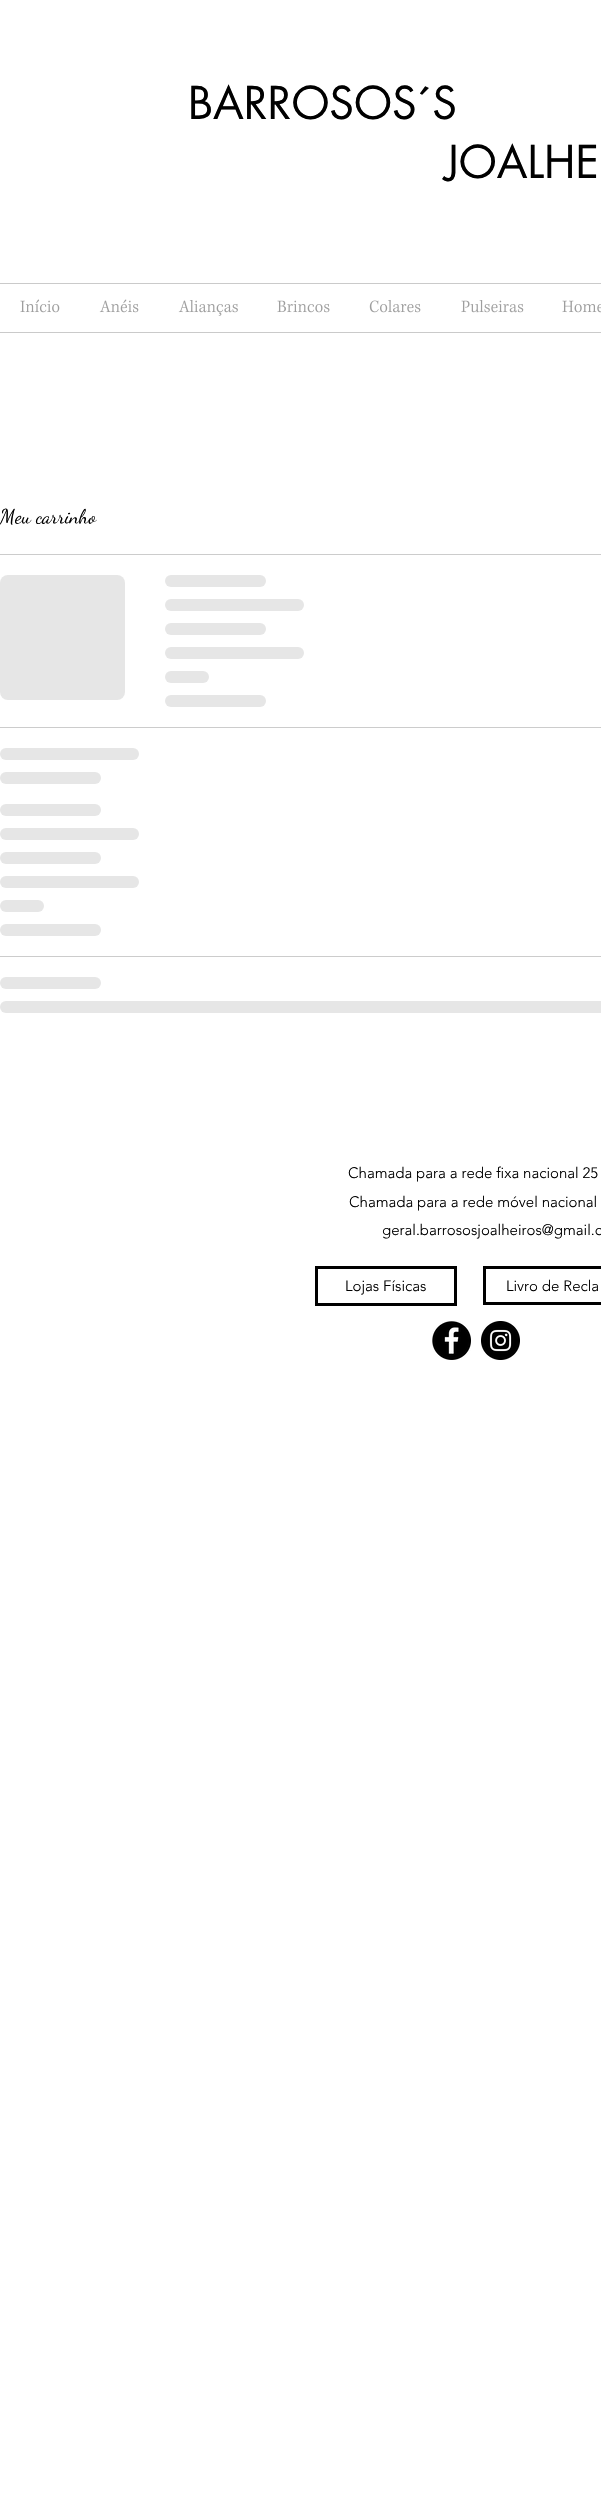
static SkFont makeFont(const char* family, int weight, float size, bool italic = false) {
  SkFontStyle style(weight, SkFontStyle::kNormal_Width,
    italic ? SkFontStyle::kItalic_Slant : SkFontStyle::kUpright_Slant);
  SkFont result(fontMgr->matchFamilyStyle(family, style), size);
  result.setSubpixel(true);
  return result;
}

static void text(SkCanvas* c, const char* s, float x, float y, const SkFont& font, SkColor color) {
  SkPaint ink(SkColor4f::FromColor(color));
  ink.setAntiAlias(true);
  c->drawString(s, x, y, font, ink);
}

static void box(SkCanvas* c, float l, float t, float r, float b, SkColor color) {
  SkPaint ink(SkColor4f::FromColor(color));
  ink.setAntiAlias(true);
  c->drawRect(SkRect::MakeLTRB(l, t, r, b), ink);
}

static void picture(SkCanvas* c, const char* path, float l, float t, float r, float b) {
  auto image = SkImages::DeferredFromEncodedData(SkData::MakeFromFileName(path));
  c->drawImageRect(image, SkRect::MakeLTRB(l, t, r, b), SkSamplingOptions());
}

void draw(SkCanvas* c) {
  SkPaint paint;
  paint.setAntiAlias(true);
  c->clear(0xffffffff);
  SkFont face1 = makeFont("futura", 400, 44);
  text(c, "BARROSOS´S", 188, 119, face1, 0xff000000);
  text(c, "JOALHE", 445, 178, face1, 0xff000000);
  box(c, 0, 283, 601, 284, 0xffcacaca);
  box(c, 0, 332, 601, 333, 0xffcacaca);
  picture(c, "img_01.png", 20, 299, 60, 313);
  picture(c, "img_02.png", 99, 299, 139, 313);
  picture(c, "img_03.png", 178, 300, 238, 316);
  picture(c, "img_04.png", 277, 300, 330, 313);
  picture(c, "img_05.png", 369, 300, 421, 313);
  picture(c, "img_06.png", 461, 300, 524, 313);
  picture(c, "img_07.png", 562, 300, 601, 313);
  box(c, 0, 554, 601, 555, 0xffcccccc);
  SkFont face2 = makeFont("Dancing Script", 400, 20);
  text(c, "Meu carrinho", 0, 523, face2, 0xff000000);
  {
    const SkColor colors[] = {0xffe6e6e6, 0xffcccccc, 0xffe6e6e6};
    const float stops[] = {0.25f, 0.37f, 0.63f};
    const SkPoint ends[] = {{0, 638}, {500, 638}};
    paint.setShader(SkGradientShader::MakeLinear(ends, colors, stops, 3, SkTileMode::kClamp));
    paint.setAlpha(255);
  }
  c->drawRoundRect(SkRect::MakeLTRB(0, 575, 125, 700), 8, 8, paint);
  {
    const SkColor colors[] = {0xffe6e6e6, 0xffcccccc, 0xffe6e6e6};
    const float stops[] = {0.25f, 0.37f, 0.63f};
    const SkPoint ends[] = {{165, 581}, {569, 581}};
    paint.setShader(SkGradientShader::MakeLinear(ends, colors, stops, 3, SkTileMode::kClamp));
    paint.setAlpha(255);
  }
  c->drawRoundRect(SkRect::MakeLTRB(165, 575, 266, 587), 6, 6, paint);
  {
    const SkColor colors[] = {0xffe6e6e6, 0xffcccccc, 0xffe6e6e6};
    const float stops[] = {0.25f, 0.37f, 0.63f};
    const SkPoint ends[] = {{165, 605}, {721, 605}};
    paint.setShader(SkGradientShader::MakeLinear(ends, colors, stops, 3, SkTileMode::kClamp));
    paint.setAlpha(255);
  }
  c->drawRoundRect(SkRect::MakeLTRB(165, 599, 304, 611), 6, 6, paint);
  {
    const SkColor colors[] = {0xffe6e6e6, 0xffcccccc, 0xffe6e6e6};
    const float stops[] = {0.25f, 0.37f, 0.63f};
    const SkPoint ends[] = {{165, 629}, {569, 629}};
    paint.setShader(SkGradientShader::MakeLinear(ends, colors, stops, 3, SkTileMode::kClamp));
    paint.setAlpha(255);
  }
  c->drawRoundRect(SkRect::MakeLTRB(165, 623, 266, 635), 6, 6, paint);
  {
    const SkColor colors[] = {0xffe6e6e6, 0xffcccccc, 0xffe6e6e6};
    const float stops[] = {0.25f, 0.37f, 0.63f};
    const SkPoint ends[] = {{165, 653}, {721, 653}};
    paint.setShader(SkGradientShader::MakeLinear(ends, colors, stops, 3, SkTileMode::kClamp));
    paint.setAlpha(255);
  }
  c->drawRoundRect(SkRect::MakeLTRB(165, 647, 304, 659), 6, 6, paint);
  {
    const SkColor colors[] = {0xffe6e6e6, 0xffcccccc, 0xffe6e6e6};
    const float stops[] = {0.25f, 0.37f, 0.63f};
    const SkPoint ends[] = {{165, 677}, {341, 677}};
    paint.setShader(SkGradientShader::MakeLinear(ends, colors, stops, 3, SkTileMode::kClamp));
    paint.setAlpha(255);
  }
  c->drawRoundRect(SkRect::MakeLTRB(165, 671, 209, 683), 6, 6, paint);
  {
    const SkColor colors[] = {0xffe6e6e6, 0xffcccccc, 0xffe6e6e6};
    const float stops[] = {0.25f, 0.37f, 0.63f};
    const SkPoint ends[] = {{165, 701}, {569, 701}};
    paint.setShader(SkGradientShader::MakeLinear(ends, colors, stops, 3, SkTileMode::kClamp));
    paint.setAlpha(255);
  }
  c->drawRoundRect(SkRect::MakeLTRB(165, 695, 266, 707), 6, 6, paint);
  box(c, 0, 727, 601, 728, 0xffcccccc);
  {
    const SkColor colors[] = {0xffe6e6e6, 0xffcccccc, 0xffe6e6e6};
    const float stops[] = {0.25f, 0.37f, 0.63f};
    const SkPoint ends[] = {{0, 754}, {556, 754}};
    paint.setShader(SkGradientShader::MakeLinear(ends, colors, stops, 3, SkTileMode::kClamp));
    paint.setAlpha(255);
  }
  c->drawRoundRect(SkRect::MakeLTRB(0, 748, 139, 760), 6, 6, paint);
  {
    const SkColor colors[] = {0xffe6e6e6, 0xffcccccc, 0xffe6e6e6};
    const float stops[] = {0.25f, 0.37f, 0.63f};
    const SkPoint ends[] = {{0, 778}, {404, 778}};
    paint.setShader(SkGradientShader::MakeLinear(ends, colors, stops, 3, SkTileMode::kClamp));
    paint.setAlpha(255);
  }
  c->drawRoundRect(SkRect::MakeLTRB(0, 772, 101, 784), 6, 6, paint);
  {
    const SkColor colors[] = {0xffe6e6e6, 0xffcccccc, 0xffe6e6e6};
    const float stops[] = {0.25f, 0.37f, 0.63f};
    const SkPoint ends[] = {{0, 810}, {404, 810}};
    paint.setShader(SkGradientShader::MakeLinear(ends, colors, stops, 3, SkTileMode::kClamp));
    paint.setAlpha(255);
  }
  c->drawRoundRect(SkRect::MakeLTRB(0, 804, 101, 816), 6, 6, paint);
  {
    const SkColor colors[] = {0xffe6e6e6, 0xffcccccc, 0xffe6e6e6};
    const float stops[] = {0.25f, 0.37f, 0.63f};
    const SkPoint ends[] = {{0, 834}, {556, 834}};
    paint.setShader(SkGradientShader::MakeLinear(ends, colors, stops, 3, SkTileMode::kClamp));
    paint.setAlpha(255);
  }
  c->drawRoundRect(SkRect::MakeLTRB(0, 828, 139, 840), 6, 6, paint);
  {
    const SkColor colors[] = {0xffe6e6e6, 0xffcccccc, 0xffe6e6e6};
    const float stops[] = {0.25f, 0.37f, 0.63f};
    const SkPoint ends[] = {{0, 858}, {404, 858}};
    paint.setShader(SkGradientShader::MakeLinear(ends, colors, stops, 3, SkTileMode::kClamp));
    paint.setAlpha(255);
  }
  c->drawRoundRect(SkRect::MakeLTRB(0, 852, 101, 864), 6, 6, paint);
  {
    const SkColor colors[] = {0xffe6e6e6, 0xffcccccc, 0xffe6e6e6};
    const float stops[] = {0.25f, 0.37f, 0.63f};
    const SkPoint ends[] = {{0, 882}, {556, 882}};
    paint.setShader(SkGradientShader::MakeLinear(ends, colors, stops, 3, SkTileMode::kClamp));
    paint.setAlpha(255);
  }
  c->drawRoundRect(SkRect::MakeLTRB(0, 876, 139, 888), 6, 6, paint);
  {
    const SkColor colors[] = {0xffe6e6e6, 0xffcccccc, 0xffe6e6e6};
    const float stops[] = {0.25f, 0.37f, 0.63f};
    const SkPoint ends[] = {{0, 906}, {176, 906}};
    paint.setShader(SkGradientShader::MakeLinear(ends, colors, stops, 3, SkTileMode::kClamp));
    paint.setAlpha(255);
  }
  c->drawRoundRect(SkRect::MakeLTRB(0, 900, 44, 912), 6, 6, paint);
  {
    const SkColor colors[] = {0xffe6e6e6, 0xffcccccc, 0xffe6e6e6};
    const float stops[] = {0.25f, 0.37f, 0.63f};
    const SkPoint ends[] = {{0, 930}, {404, 930}};
    paint.setShader(SkGradientShader::MakeLinear(ends, colors, stops, 3, SkTileMode::kClamp));
    paint.setAlpha(255);
  }
  c->drawRoundRect(SkRect::MakeLTRB(0, 924, 101, 936), 6, 6, paint);
  box(c, 0, 956, 601, 957, 0xffcccccc);
  {
    const SkColor colors[] = {0xffe6e6e6, 0xffcccccc, 0xffe6e6e6};
    const float stops[] = {0.25f, 0.37f, 0.63f};
    const SkPoint ends[] = {{0, 983}, {404, 983}};
    paint.setShader(SkGradientShader::MakeLinear(ends, colors, stops, 3, SkTileMode::kClamp));
    paint.setAlpha(255);
  }
  c->drawRoundRect(SkRect::MakeLTRB(0, 977, 101, 989), 6, 6, paint);
  {
    const SkColor colors[] = {0xffe6e6e6, 0xffcccccc, 0xffe6e6e6};
    const float stops[] = {0.25f, 0.37f, 0.63f};
    const SkPoint ends[] = {{0, 1007}, {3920, 1007}};
    paint.setShader(SkGradientShader::MakeLinear(ends, colors, stops, 3, SkTileMode::kClamp));
    paint.setAlpha(255);
  }
  c->drawRoundRect(SkRect::MakeLTRB(0, 1001, 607, 1013), 6, 6, paint);
  SkFont face3 = makeFont("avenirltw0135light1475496", 300, 15);
  text(c, "Chamada para a rede fixa nacional 25", 348, 1178, face3, 0xff000000);
  text(c, "Chamada para a rede móvel nacional", 349, 1207, face3, 0xff000000);
  text(c, "geral.barrososjoalheiros@gmail.c", 382, 1235, face3, 0xff000000);
  paint.setStyle(SkPaint::kStroke_Style);
  paint.setStrokeWidth(3);
  paint.setShader(nullptr);
  paint.setColor(0xff000000);
  c->drawRect(SkRect::MakeLTRB(316.5f, 1267.5f, 455.5f, 1304.5f), paint);
  text(c, "Lojas Físicas", 345, 1291, face3, 0xff000000);
  c->drawRect(SkRect::MakeLTRB(484.5f, 1267.5f, 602.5f, 1303.5f), paint);
  text(c, "Livro de Recla", 506, 1291, face3, 0xff000000);
  picture(c, "img_08.png", 432, 1321, 471, 1360);
  picture(c, "img_09.png", 481, 1321, 520, 1360);
}
